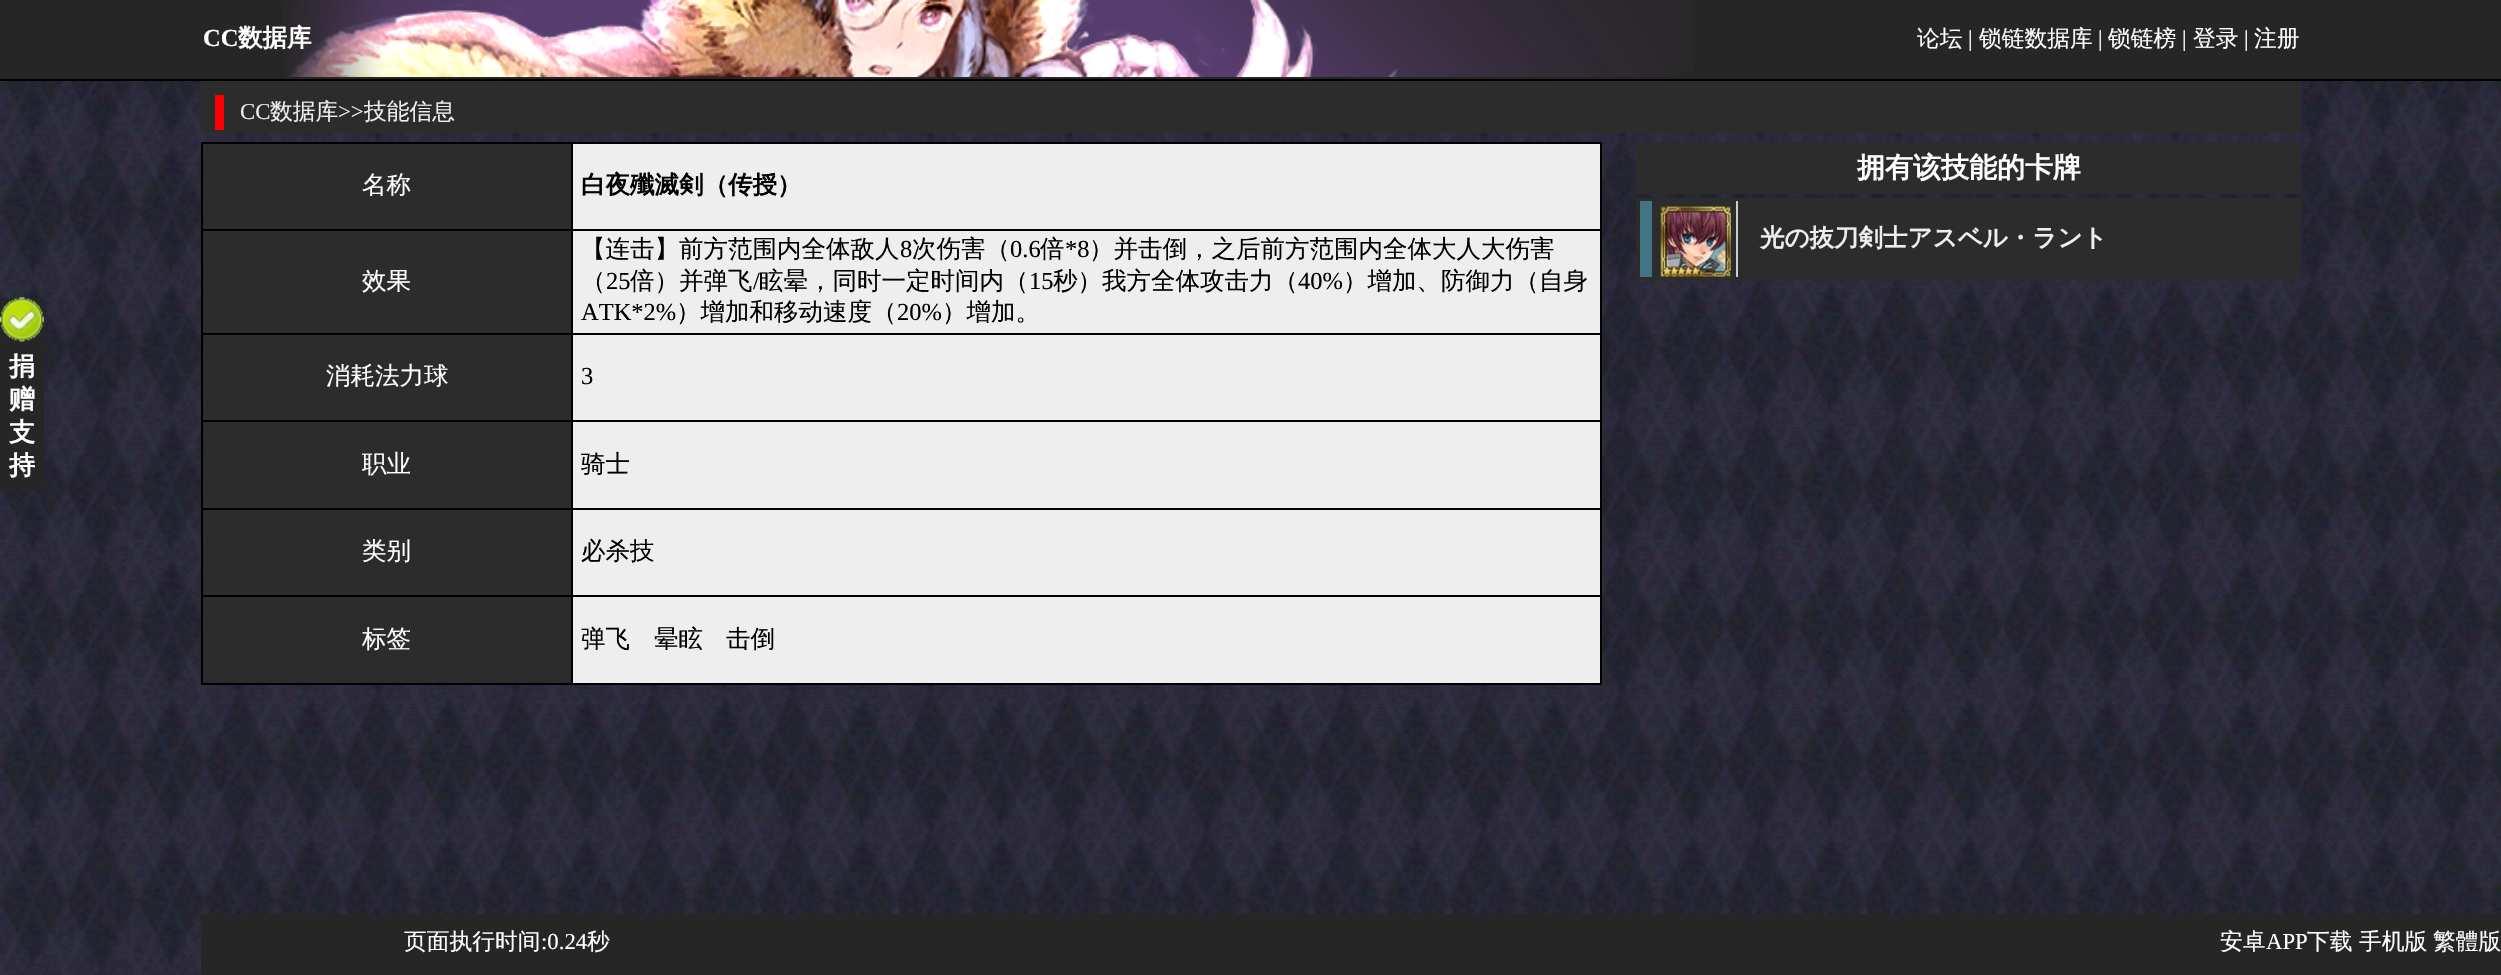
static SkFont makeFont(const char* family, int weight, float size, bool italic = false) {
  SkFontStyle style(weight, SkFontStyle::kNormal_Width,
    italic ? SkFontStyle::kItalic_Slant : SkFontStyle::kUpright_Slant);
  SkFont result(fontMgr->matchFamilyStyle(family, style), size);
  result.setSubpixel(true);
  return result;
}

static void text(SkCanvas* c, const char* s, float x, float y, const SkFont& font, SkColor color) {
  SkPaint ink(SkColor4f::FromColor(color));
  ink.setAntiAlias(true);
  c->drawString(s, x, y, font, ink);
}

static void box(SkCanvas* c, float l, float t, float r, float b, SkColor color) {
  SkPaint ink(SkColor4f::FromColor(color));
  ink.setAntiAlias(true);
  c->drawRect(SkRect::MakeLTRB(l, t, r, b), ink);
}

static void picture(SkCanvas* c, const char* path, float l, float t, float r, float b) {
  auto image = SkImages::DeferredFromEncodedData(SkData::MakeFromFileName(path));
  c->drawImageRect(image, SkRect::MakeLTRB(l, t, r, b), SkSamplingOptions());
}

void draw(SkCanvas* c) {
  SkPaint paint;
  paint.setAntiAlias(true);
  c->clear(0xffffffff);
  picture(c, "img_01.png", 0, 81, 2501, 975);
  box(c, 0, 0, 2501, 79, 0xff272626);
  box(c, 0, 79, 2501, 81, 0xff000000);
  picture(c, "img_02.png", 283, 0, 1693, 77);
  SkFont face1 = makeFont("Liberation Serif", 700, 24.5f);
  text(c, "CC", 203, 46, face1, 0xffffffff);
  SkFont face2 = makeFont("WenQuanYi Zen Hei", 700, 24.5f);
  text(c, "数据库", 238, 46, face2, 0xffffffff);
  SkFont face3 = makeFont("WenQuanYi Zen Hei", 500, 22.75f);
  text(c, "论坛", 1917, 46, face3, 0xffffffff);
  SkFont face4 = makeFont("Liberation Serif", 400, 22.75f);
  text(c, "|", 1968, 46, face4, 0xffffffff);
  text(c, "锁链数据库", 1979, 46, face3, 0xffffffff);
  text(c, "|", 2098, 46, face4, 0xffffffff);
  text(c, "锁链榜", 2108, 46, face3, 0xffffffff);
  text(c, "|", 2182, 46, face4, 0xffffffff);
  text(c, "登录", 2193, 46, face3, 0xffffffff);
  text(c, "|", 2244, 46, face4, 0xffffffff);
  text(c, "注册", 2254, 46, face3, 0xffffffff);
  box(c, 201, 81, 2301, 133, 0xff2c2c2c);
  box(c, 215, 95, 224, 130, 0xffff0000);
  text(c, "CC", 240, 119, face4, 0xffeeeeee);
  text(c, "数据库", 270, 119, face3, 0xffeeeeee);
  text(c, ">>", 338, 119, face4, 0xffeeeeee);
  text(c, "技能信息", 364, 119, face3, 0xffeeeeee);
  box(c, 0, 298, 44, 490, 0xff272626);
  picture(c, "img_03.png", 0, 297, 44, 342);
  SkFont face5 = makeFont("WenQuanYi Zen Hei", 700, 26);
  text(c, "捐", 9, 375, face5, 0xffffffff);
  text(c, "赠", 9, 408, face5, 0xffffffff);
  text(c, "支", 9, 441, face5, 0xffffffff);
  text(c, "持", 9, 474, face5, 0xffffffff);
  box(c, 573, 144, 1600, 683, 0xffeeeeee);
  box(c, 203, 144, 571, 229, 0xff2c2c2c);
  box(c, 571, 142, 1601, 144, 0xff000000);
  box(c, 571, 229, 1601, 231, 0xff000000);
  box(c, 571, 333, 1601, 335, 0xff000000);
  box(c, 571, 420, 1601, 422, 0xff000000);
  box(c, 571, 508, 1601, 510, 0xff000000);
  box(c, 571, 595, 1601, 597, 0xff000000);
  box(c, 1600, 595, 1602, 684, 0xff000000);
  box(c, 571, 683, 1601, 685, 0xff000000);
  box(c, 571, 595, 573, 684, 0xff000000);
  box(c, 201, 595, 572, 597, 0xff000000);
  box(c, 571, 508, 573, 597, 0xff000000);
  box(c, 201, 508, 572, 510, 0xff000000);
  box(c, 571, 420, 573, 509, 0xff000000);
  box(c, 201, 420, 572, 422, 0xff000000);
  box(c, 571, 333, 573, 422, 0xff000000);
  box(c, 201, 333, 572, 335, 0xff000000);
  box(c, 571, 229, 573, 334, 0xff000000);
  box(c, 201, 229, 572, 231, 0xff000000);
  box(c, 571, 142, 573, 231, 0xff000000);
  box(c, 201, 142, 572, 144, 0xff000000);
  box(c, 201, 683, 572, 685, 0xff000000);
  box(c, 201, 595, 203, 684, 0xff000000);
  box(c, 201, 508, 203, 597, 0xff000000);
  box(c, 201, 420, 203, 509, 0xff000000);
  box(c, 201, 333, 203, 422, 0xff000000);
  box(c, 201, 229, 203, 334, 0xff000000);
  box(c, 201, 142, 203, 231, 0xff000000);
  SkFont face6 = makeFont("WenQuanYi Zen Hei", 500, 24.5f);
  text(c, "名称", 362, 193, face6, 0xffffffff);
  box(c, 1600, 508, 1602, 597, 0xff000000);
  box(c, 1600, 420, 1602, 509, 0xff000000);
  box(c, 1600, 333, 1602, 422, 0xff000000);
  box(c, 1600, 229, 1602, 334, 0xff000000);
  box(c, 1600, 142, 1602, 231, 0xff000000);
  text(c, "白夜殲滅剣（传授）", 581, 193, face2, 0xff000000);
  box(c, 203, 231, 571, 333, 0xff2c2c2c);
  text(c, "效果", 362, 289, face6, 0xffffffff);
  text(c, "【连击】前方范围内全体敌人", 581, 257, face6, 0xff000000);
  SkFont face7 = makeFont("Liberation Serif", 400, 24.5f);
  text(c, "8", 900, 257, face7, 0xff000000);
  text(c, "次伤害（", 912, 257, face6, 0xff000000);
  text(c, "0.6", 1010, 257, face7, 0xff000000);
  text(c, "倍", 1040, 257, face6, 0xff000000);
  text(c, "*8", 1065, 257, face7, 0xff000000);
  text(c, "）并击倒，之后前方范围内全体大人大伤害", 1089, 257, face6, 0xff000000);
  text(c, "（", 581, 289, face6, 0xff000000);
  text(c, "25", 606, 289, face7, 0xff000000);
  text(c, "倍）并弹飞", 630, 289, face6, 0xff000000);
  text(c, "/", 753, 289, face7, 0xff000000);
  text(c, "眩晕，同时一定时间内（", 759, 289, face6, 0xff000000);
  text(c, "15", 1029, 289, face7, 0xff000000);
  text(c, "秒）我方全体攻击力（", 1053, 289, face6, 0xff000000);
  text(c, "40%", 1298, 289, face7, 0xff000000);
  text(c, "）增加、防御力（自身", 1343, 289, face6, 0xff000000);
  text(c, "ATK*2%", 581, 320, face7, 0xff000000);
  text(c, "）增加和移动速度（", 676, 320, face6, 0xff000000);
  text(c, "20%", 897, 320, face7, 0xff000000);
  text(c, "）增加。", 942, 320, face6, 0xff000000);
  box(c, 203, 335, 571, 420, 0xff2c2c2c);
  text(c, "消耗法力球", 326, 384, face6, 0xffffffff);
  text(c, "3", 581, 384, face7, 0xff000000);
  box(c, 203, 422, 571, 508, 0xff2c2c2c);
  text(c, "职业", 362, 472, face6, 0xffffffff);
  text(c, "骑士", 581, 472, face6, 0xff000000);
  box(c, 203, 510, 571, 595, 0xff2c2c2c);
  text(c, "类别", 362, 559, face6, 0xffffffff);
  text(c, "必杀技", 581, 559, face6, 0xff000000);
  box(c, 203, 597, 571, 683, 0xff2c2c2c);
  text(c, "标签", 362, 647, face6, 0xffffffff);
  text(c, "弹飞", 581, 647, face6, 0xff000000);
  text(c, "晕眩", 654, 647, face6, 0xff000000);
  text(c, "击倒", 726, 647, face6, 0xff000000);
  box(c, 1636, 142, 2301, 194, 0xff2c2c2c);
  SkFont face8 = makeFont("WenQuanYi Zen Hei", 700, 28);
  text(c, "拥有该技能的卡牌", 1857, 177, face8, 0xffffffff);
  box(c, 1636, 198, 2301, 280, 0xff2c2c2c);
  box(c, 1640, 201, 1652, 277, 0xff417485);
  box(c, 1736, 201, 1738, 277, 0xffcdcdcd);
  picture(c, "img_04.png", 1660, 206, 1731, 277);
  text(c, "光の抜刀剣士アスベル・ラント", 1760, 246, face2, 0xffeeeeee);
  box(c, 201, 914, 2501, 975, 0xff272626);
  text(c, "页面执行时间", 404, 949, face3, 0xffffffff);
  text(c, ":0.24", 541, 949, face4, 0xffffffff);
  text(c, "秒", 587, 949, face3, 0xffffffff);
  text(c, "安卓", 2220, 949, face3, 0xffffffff);
  text(c, "APP", 2266, 949, face4, 0xffffffff);
  text(c, "下载", 2307, 949, face3, 0xffffffff);
  text(c, "手机版", 2359, 949, face3, 0xffffffff);
  text(c, "繁體版", 2433, 949, face3, 0xffffffff);
}
